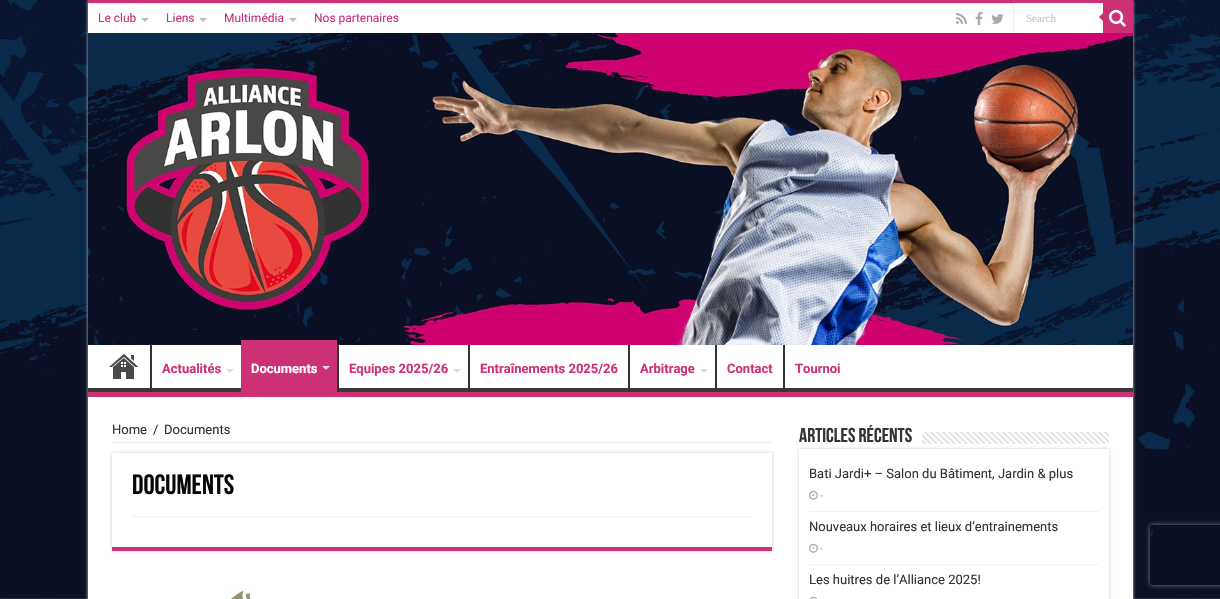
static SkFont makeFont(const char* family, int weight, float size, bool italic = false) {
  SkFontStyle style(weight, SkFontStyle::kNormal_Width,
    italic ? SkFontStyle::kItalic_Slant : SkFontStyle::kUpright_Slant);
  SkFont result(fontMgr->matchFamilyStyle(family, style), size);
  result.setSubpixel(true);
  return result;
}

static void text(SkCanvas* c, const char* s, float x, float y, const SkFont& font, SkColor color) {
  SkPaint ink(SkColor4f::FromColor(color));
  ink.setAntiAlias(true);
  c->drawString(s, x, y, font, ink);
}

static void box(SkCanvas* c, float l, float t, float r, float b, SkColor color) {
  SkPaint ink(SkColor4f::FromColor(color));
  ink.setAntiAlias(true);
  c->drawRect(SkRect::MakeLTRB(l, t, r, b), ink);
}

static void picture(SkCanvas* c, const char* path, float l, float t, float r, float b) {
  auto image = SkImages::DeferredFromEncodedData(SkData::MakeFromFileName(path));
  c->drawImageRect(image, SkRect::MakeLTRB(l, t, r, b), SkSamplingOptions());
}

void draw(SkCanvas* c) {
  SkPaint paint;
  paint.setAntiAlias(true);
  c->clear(0xffffffff);
  picture(c, "img_01.png", 0, 598, 1220, 599);
  picture(c, "img_02.png", 0, 0, 1220, 599);
  paint.setColor(0xffcacaca);
  paint.setMaskFilter(SkMaskFilter::MakeBlur(kNormal_SkBlurStyle, 1.5f));
  c->drawRect(SkRect::MakeLTRB(88, 0, 1133, 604), paint);
  paint.setMaskFilter(nullptr);
  box(c, 88, 4, 1133, 599, 0xffffffff);
  box(c, 88, 0, 1133, 3, 0xffcd3175);
  box(c, 88, 3, 1013, 4, 0xffececec);
  SkFont face1 = makeFont("Roboto", 400, 12);
  text(c, "Le club", 98, 22, face1, 0xffcd3175);
  paint.setColor(0xffbbbbbb);
  c->drawPath(SkPathBuilder().moveTo(141, 18).lineTo(149, 18).lineTo(145, 22).close().detach(), paint);
  text(c, "Liens", 166, 22, face1, 0xffcd3175);
  c->drawPath(SkPathBuilder().moveTo(199, 18).lineTo(207, 18).lineTo(203, 22).close().detach(), paint);
  text(c, "Multimédia", 224, 22, face1, 0xffcd3175);
  c->drawPath(SkPathBuilder().moveTo(289, 18).lineTo(297, 18).lineTo(293, 22).close().detach(), paint);
  text(c, "Nos partenaires", 314, 22, face1, 0xffcd3175);
  picture(c, "img_03.png", 956, 13, 967, 24);
  picture(c, "img_04.png", 975, 12, 983, 25);
  picture(c, "img_05.png", 991, 14, 1004, 24);
  box(c, 1014, 3, 1103, 4, 0xffffffff);
  box(c, 1013, 3, 1014, 32, 0xffececec);
  SkFont face2 = makeFont("Liberation Serif", 400, 11);
  text(c, "Search", 1026, 22, face2, 0xffc5c5c5);
  box(c, 1103, 3, 1133, 33, 0xffcd3175);
  picture(c, "img_06.png", 1109, 9, 1126, 27);
  paint.setColor(0xffcd3175);
  c->drawPath(SkPathBuilder().moveTo(1103, 13).lineTo(1103, 21).lineTo(1099, 17).close().detach(), paint);
  picture(c, "img_07.png", 88, 33, 1133, 345);
  c->save();
  c->clipRect(SkRect::MakeLTRB(88, 345, 1133, 392));
  paint.setColor(0xff393939);
  c->drawPath(SkPathBuilder(SkPathFillType::kEvenOdd).moveTo(-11, 246).lineTo(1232, 246).lineTo(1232, 491).lineTo(-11, 491).close().moveTo(87, 339).lineTo(1133, 339).lineTo(1133, 379).cubicTo(1133, 380, 1134, 388, 1132, 388).lineTo(87, 388).lineTo(86, 387).lineTo(86, 339).close().detach(), paint);
  c->restore();
  box(c, 88, 392, 1133, 397, 0xffcd3175);
  picture(c, "img_08.png", 109, 354, 139, 379);
  box(c, 150, 345, 152, 392, 0xff333333);
  SkFont face3 = makeFont("Roboto", 700, 13);
  text(c, "Actualités", 162, 373, face3, 0xffcd3175);
  paint.setColor(0xffdddddd);
  c->drawPath(SkPathBuilder().moveTo(226, 369).lineTo(234, 369).lineTo(230, 373).close().detach(), paint);
  box(c, 241, 340, 337, 392, 0xffcd3175);
  text(c, "Documents", 251, 373, face3, 0xffffffff);
  c->drawPath(SkPathBuilder().moveTo(322, 366).lineTo(330, 366).lineTo(326, 370).close().detach(), paint);
  box(c, 337, 345, 339, 392, 0xff333333);
  text(c, "Equipes 2025/26", 349, 373, face3, 0xffcd3175);
  c->drawPath(SkPathBuilder().moveTo(453, 369).lineTo(461, 369).lineTo(457, 373).close().detach(), paint);
  box(c, 468, 345, 470, 392, 0xff333333);
  text(c, "Entraînements 2025/26", 480, 373, face3, 0xffcd3175);
  box(c, 628, 345, 630, 392, 0xff333333);
  text(c, "Arbitrage", 640, 373, face3, 0xffcd3175);
  c->drawPath(SkPathBuilder().moveTo(700, 369).lineTo(708, 369).lineTo(704, 373).close().detach(), paint);
  box(c, 715, 345, 717, 392, 0xff333333);
  text(c, "Contact", 727, 373, face3, 0xffcd3175);
  box(c, 783, 345, 785, 392, 0xff333333);
  text(c, "Tournoi", 795, 373, face3, 0xffcd3175);
  box(c, 112, 442, 772, 443, 0xffeeeeee);
  SkFont face4 = makeFont("Roboto", 400, 13);
  text(c, "Home", 112, 434, face4, 0xff333333);
  text(c, "/", 153, 434, face4, 0xff333333);
  text(c, "Documents", 164, 434, face4, 0xff333333);
  c->save();
  c->clipPath(SkPathBuilder(SkPathFillType::kEvenOdd).moveTo(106, 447).lineTo(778, 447).lineTo(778, 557).lineTo(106, 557).close().moveTo(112, 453).lineTo(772, 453).lineTo(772, 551).lineTo(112, 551).close().detach(), true);
  paint.setColor(0xffcacaca);
  paint.setMaskFilter(SkMaskFilter::MakeBlur(kNormal_SkBlurStyle, 1.5f));
  c->drawRect(SkRect::MakeLTRB(112, 453, 772, 551), paint);
  paint.setMaskFilter(nullptr);
  c->restore();
  box(c, 112, 547, 772, 551, 0xffcd3175);
  SkFont face5 = makeFont("Bebas Neue", 700, 28);
  text(c, "Documents", 132, 494, face5, 0xff070707);
  box(c, 132, 516, 752, 517, 0xfff2f2f2);
  picture(c, "img_09.png", 224, 591, 256, 599);
  SkFont face6 = makeFont("Bebas Neue", 700, 20);
  text(c, "Articles récents", 799, 442, face6, 0xff333333);
  c->save();
  c->clipPath(SkPathBuilder(SkPathFillType::kEvenOdd).moveTo(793, 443).lineTo(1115, 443).lineTo(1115, 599).lineTo(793, 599).close().moveTo(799, 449).lineTo(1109, 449).lineTo(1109, 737).lineTo(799, 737).close().detach(), true);
  paint.setMaskFilter(SkMaskFilter::MakeBlur(kNormal_SkBlurStyle, 1.5f));
  c->drawRect(SkRect::MakeLTRB(799, 449, 1109, 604), paint);
  paint.setMaskFilter(nullptr);
  c->restore();
  picture(c, "img_10.png", 922, 432, 1109, 444);
  box(c, 809, 511, 1099, 512, 0xfff2f2f2);
  text(c, "Bati Jardi+ – Salon du Bâtiment, Jardin & plus", 809, 478, face4, 0xff333333);
  picture(c, "img_11.png", 809, 490, 818, 500);
  SkFont face7 = makeFont("Roboto", 400, 10);
  text(c, "-", 820, 499, face7, 0xffaaaaaa);
  box(c, 809, 564, 1099, 565, 0xfff2f2f2);
  text(c, "Nouveaux horaires et lieux d’entrainements", 809, 531, face4, 0xff333333);
  picture(c, "img_11.png", 809, 543, 818, 553);
  text(c, "-", 820, 552, face7, 0xffaaaaaa);
  text(c, "Les huitres de l’Alliance 2025!", 809, 584, face4, 0xff333333);
  picture(c, "img_12.png", 809, 596, 818, 599);
  c->save();
  c->clipPath(SkPathBuilder(SkPathFillType::kEvenOdd).moveTo(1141, 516).lineTo(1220, 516).lineTo(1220, 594).lineTo(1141, 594).close().moveTo(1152, 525).lineTo(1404, 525).cubicTo(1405, 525, 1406, 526, 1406, 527).lineTo(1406, 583).cubicTo(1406, 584, 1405, 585, 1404, 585).lineTo(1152, 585).cubicTo(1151, 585, 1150, 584, 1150, 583).lineTo(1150, 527).cubicTo(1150, 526, 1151, 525, 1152, 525).close().detach(), true);
  paint.setColor(0xff808080);
  paint.setMaskFilter(SkMaskFilter::MakeBlur(kNormal_SkBlurStyle, 2.5f));
  c->drawRoundRect(SkRect::MakeLTRB(1150, 525, 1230, 585), 2, 2, paint);
  paint.setMaskFilter(nullptr);
  c->restore();
}
